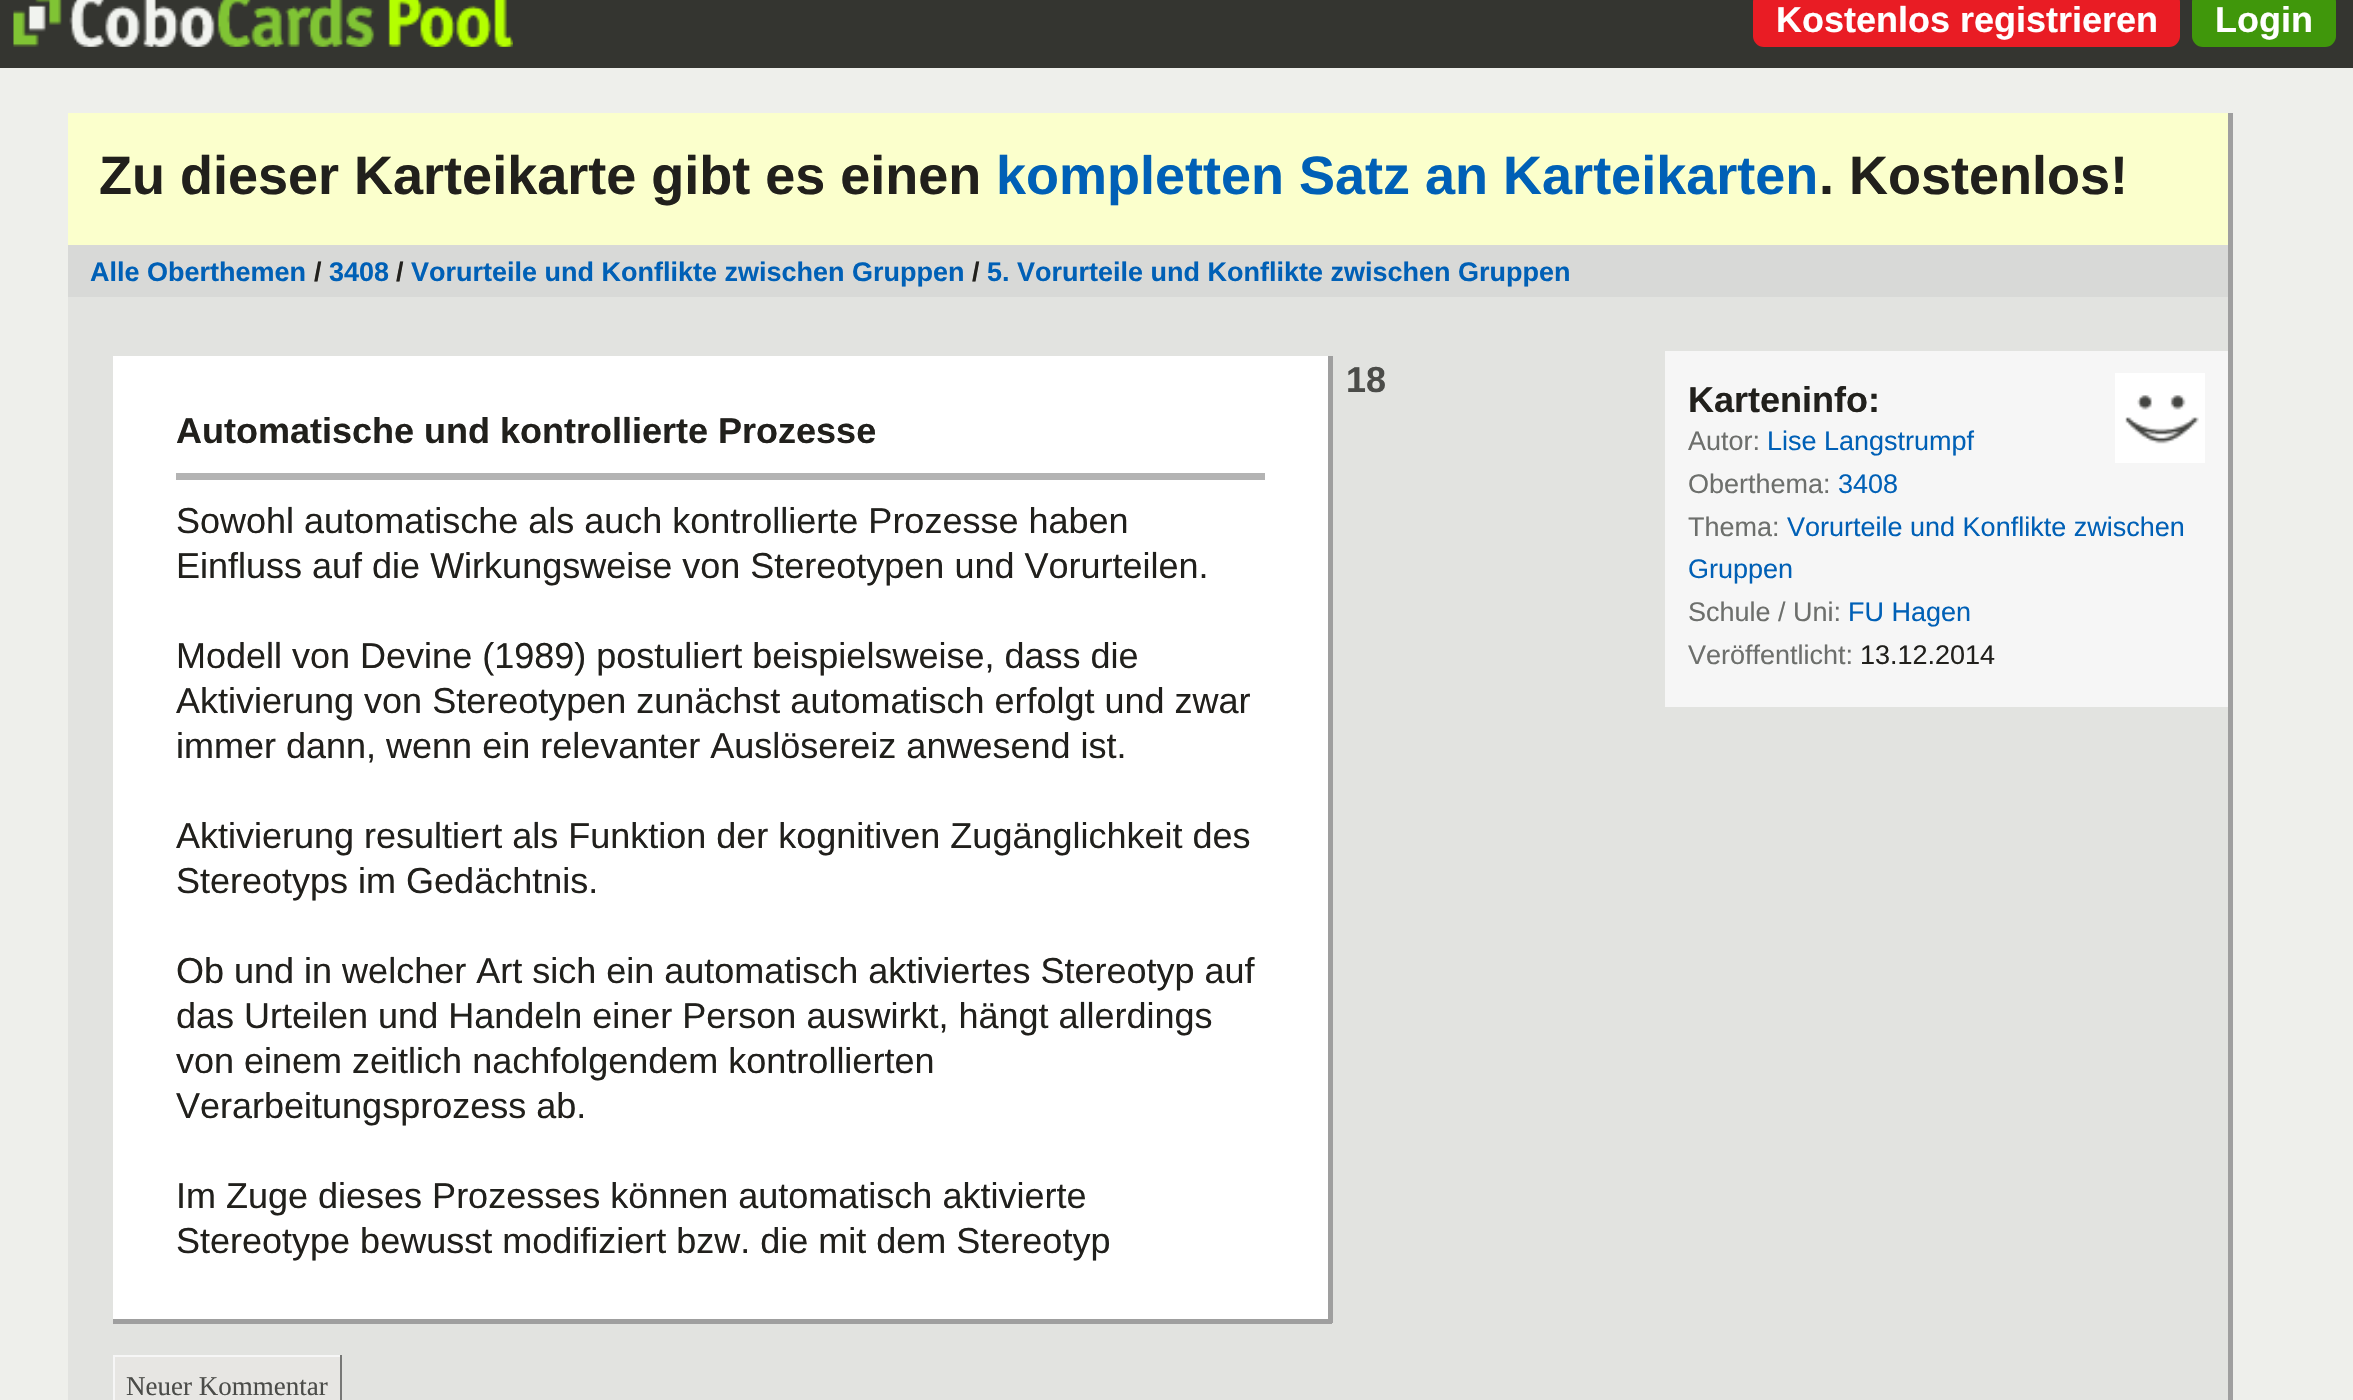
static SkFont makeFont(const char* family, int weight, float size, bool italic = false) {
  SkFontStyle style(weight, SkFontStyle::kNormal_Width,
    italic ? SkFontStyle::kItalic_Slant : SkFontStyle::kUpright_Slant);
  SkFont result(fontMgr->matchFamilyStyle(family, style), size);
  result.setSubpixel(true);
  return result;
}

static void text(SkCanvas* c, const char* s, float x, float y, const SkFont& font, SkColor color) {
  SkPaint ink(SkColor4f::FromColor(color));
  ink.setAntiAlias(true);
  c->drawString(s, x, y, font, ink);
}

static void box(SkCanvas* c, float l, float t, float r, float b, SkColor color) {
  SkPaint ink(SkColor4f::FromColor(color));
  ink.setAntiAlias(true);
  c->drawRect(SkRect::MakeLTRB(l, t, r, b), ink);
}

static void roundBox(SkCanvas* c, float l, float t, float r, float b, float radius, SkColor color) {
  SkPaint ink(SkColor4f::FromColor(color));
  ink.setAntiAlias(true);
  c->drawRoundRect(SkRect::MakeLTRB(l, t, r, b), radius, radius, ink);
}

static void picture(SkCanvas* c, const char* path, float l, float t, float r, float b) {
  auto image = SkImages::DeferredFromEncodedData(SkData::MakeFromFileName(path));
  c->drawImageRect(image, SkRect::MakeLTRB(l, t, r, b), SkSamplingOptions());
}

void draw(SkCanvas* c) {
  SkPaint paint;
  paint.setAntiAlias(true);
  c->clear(0xffeeefeb);
  box(c, 0, 0, 2353, 68, 0xff343530);
  picture(c, "img_01.png", 13, 0, 513, 47);
  roundBox(c, 1753, -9, 2180, 47, 11, 0xffe91c24);
  SkFont face1 = makeFont("Liberation Sans", 700, 36);
  text(c, "Kostenlos registrieren", 1776, 32, face1, 0xffffffff);
  roundBox(c, 2192, -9, 2336, 47, 11, 0xff40970b);
  text(c, "Login", 2215, 32, face1, 0xffffffff);
  box(c, 68, 297, 2228, 1400, 0xffe2e3e0);
  box(c, 2228, 113, 2233, 1400, 0xff9f9f9f);
  box(c, 68, 113, 2228, 245, 0xfffbffcc);
  SkFont face2 = makeFont("Liberation Sans", 700, 54);
  text(c, "Zu dieser Karteikarte gibt es einen", 99, 194, face2, 0xff21201c);
  text(c, "kompletten Satz an Karteikarten", 996, 194, face2, 0xff0060b6);
  text(c, ". Kostenlos!", 1819, 194, face2, 0xff21201c);
  box(c, 68, 245, 2228, 297, 0xffd8d9d7);
  SkFont face3 = makeFont("Liberation Sans", 700, 27);
  text(c, "Alle Oberthemen", 90, 281, face3, 0xff0060b6);
  text(c, "/", 314, 281, face3, 0xff21201c);
  text(c, "3408", 329, 281, face3, 0xff0060b6);
  text(c, "/", 396, 281, face3, 0xff21201c);
  text(c, "Vorurteile und Konflikte zwischen Gruppen", 411, 281, face3, 0xff0060b6);
  text(c, "/", 972, 281, face3, 0xff21201c);
  text(c, "5. Vorurteile und Konflikte zwischen Gruppen", 987, 281, face3, 0xff0060b6);
  box(c, 113, 356, 1328, 1319, 0xffffffff);
  box(c, 1328, 356, 1333, 1323, 0xff9f9f9f);
  box(c, 113, 1319, 1332, 1324, 0xff9f9f9f);
  text(c, "18", 1346, 392, face1, 0xff4b4c49);
  text(c, "Automatische und kontrollierte Prozesse", 176, 443, face1, 0xff21201c);
  box(c, 176, 473, 1265, 480, 0xffb3b3b3);
  SkFont face4 = makeFont("Liberation Sans", 400, 36);
  text(c, "Sowohl automatische als auch kontrollierte Prozesse haben", 176, 533, face4, 0xff21201c);
  text(c, "Einfluss auf die Wirkungsweise von Stereotypen und Vorurteilen.", 176, 578, face4, 0xff21201c);
  text(c, "Modell von Devine (1989) postuliert beispielsweise, dass die", 176, 668, face4, 0xff21201c);
  text(c, "Aktivierung von Stereotypen zunächst automatisch erfolgt und zwar", 176, 713, face4, 0xff21201c);
  text(c, "immer dann, wenn ein relevanter Auslösereiz anwesend ist.", 176, 758, face4, 0xff21201c);
  text(c, "Aktivierung resultiert als Funktion der kognitiven Zugänglichkeit des", 176, 848, face4, 0xff21201c);
  text(c, "Stereotyps im Gedächtnis.", 176, 893, face4, 0xff21201c);
  text(c, "Ob und in welcher Art sich ein automatisch aktiviertes Stereotyp auf", 176, 983, face4, 0xff21201c);
  text(c, "das Urteilen und Handeln einer Person auswirkt, hängt allerdings", 176, 1028, face4, 0xff21201c);
  text(c, "von einem zeitlich nachfolgendem kontrollierten", 176, 1073, face4, 0xff21201c);
  text(c, "Verarbeitungsprozess ab.", 176, 1118, face4, 0xff21201c);
  text(c, "Im Zuge dieses Prozesses können automatisch aktivierte", 176, 1208, face4, 0xff21201c);
  text(c, "Stereotype bewusst modifiziert bzw. die mit dem Stereotyp", 176, 1253, face4, 0xff21201c);
  box(c, 115, 1357, 340, 1400, 0xffe7e6e3);
  box(c, 113, 1355, 342, 1357, 0xfff6f6f6);
  box(c, 340, 1355, 342, 1400, 0xff777876);
  box(c, 113, 1355, 115, 1400, 0xfff6f6f6);
  SkFont face5 = makeFont("Liberation Serif", 400, 27);
  text(c, "Neuer Kommentar", 126, 1395, face5, 0xff4b4c49);
  box(c, 1665, 351, 2228, 707, 0xfff6f6f6);
  text(c, "Karteninfo:", 1688, 412, face1, 0xff21201c);
  picture(c, "img_02.png", 2115, 373, 2205, 463);
  SkFont face6 = makeFont("Liberation Sans", 400, 27);
  text(c, "Autor:", 1688, 450, face6, 0xff6d6f6c);
  text(c, "Lise Langstrumpf", 1767, 450, face6, 0xff0060b6);
  text(c, "Oberthema:", 1688, 493, face6, 0xff6d6f6c);
  text(c, "3408", 1838, 493, face6, 0xff0060b6);
  text(c, "Thema:", 1688, 536, face6, 0xff6d6f6c);
  text(c, "Vorurteile und Konflikte zwischen", 1787, 536, face6, 0xff0060b6);
  text(c, "Gruppen", 1688, 578, face6, 0xff0060b6);
  text(c, "Schule / Uni:", 1688, 621, face6, 0xff6d6f6c);
  text(c, "FU Hagen", 1848, 621, face6, 0xff0060b6);
  text(c, "Veröffentlicht:", 1688, 664, face6, 0xff6d6f6c);
  text(c, "13.12.2014", 1860, 664, face6, 0xff21201c);
}
